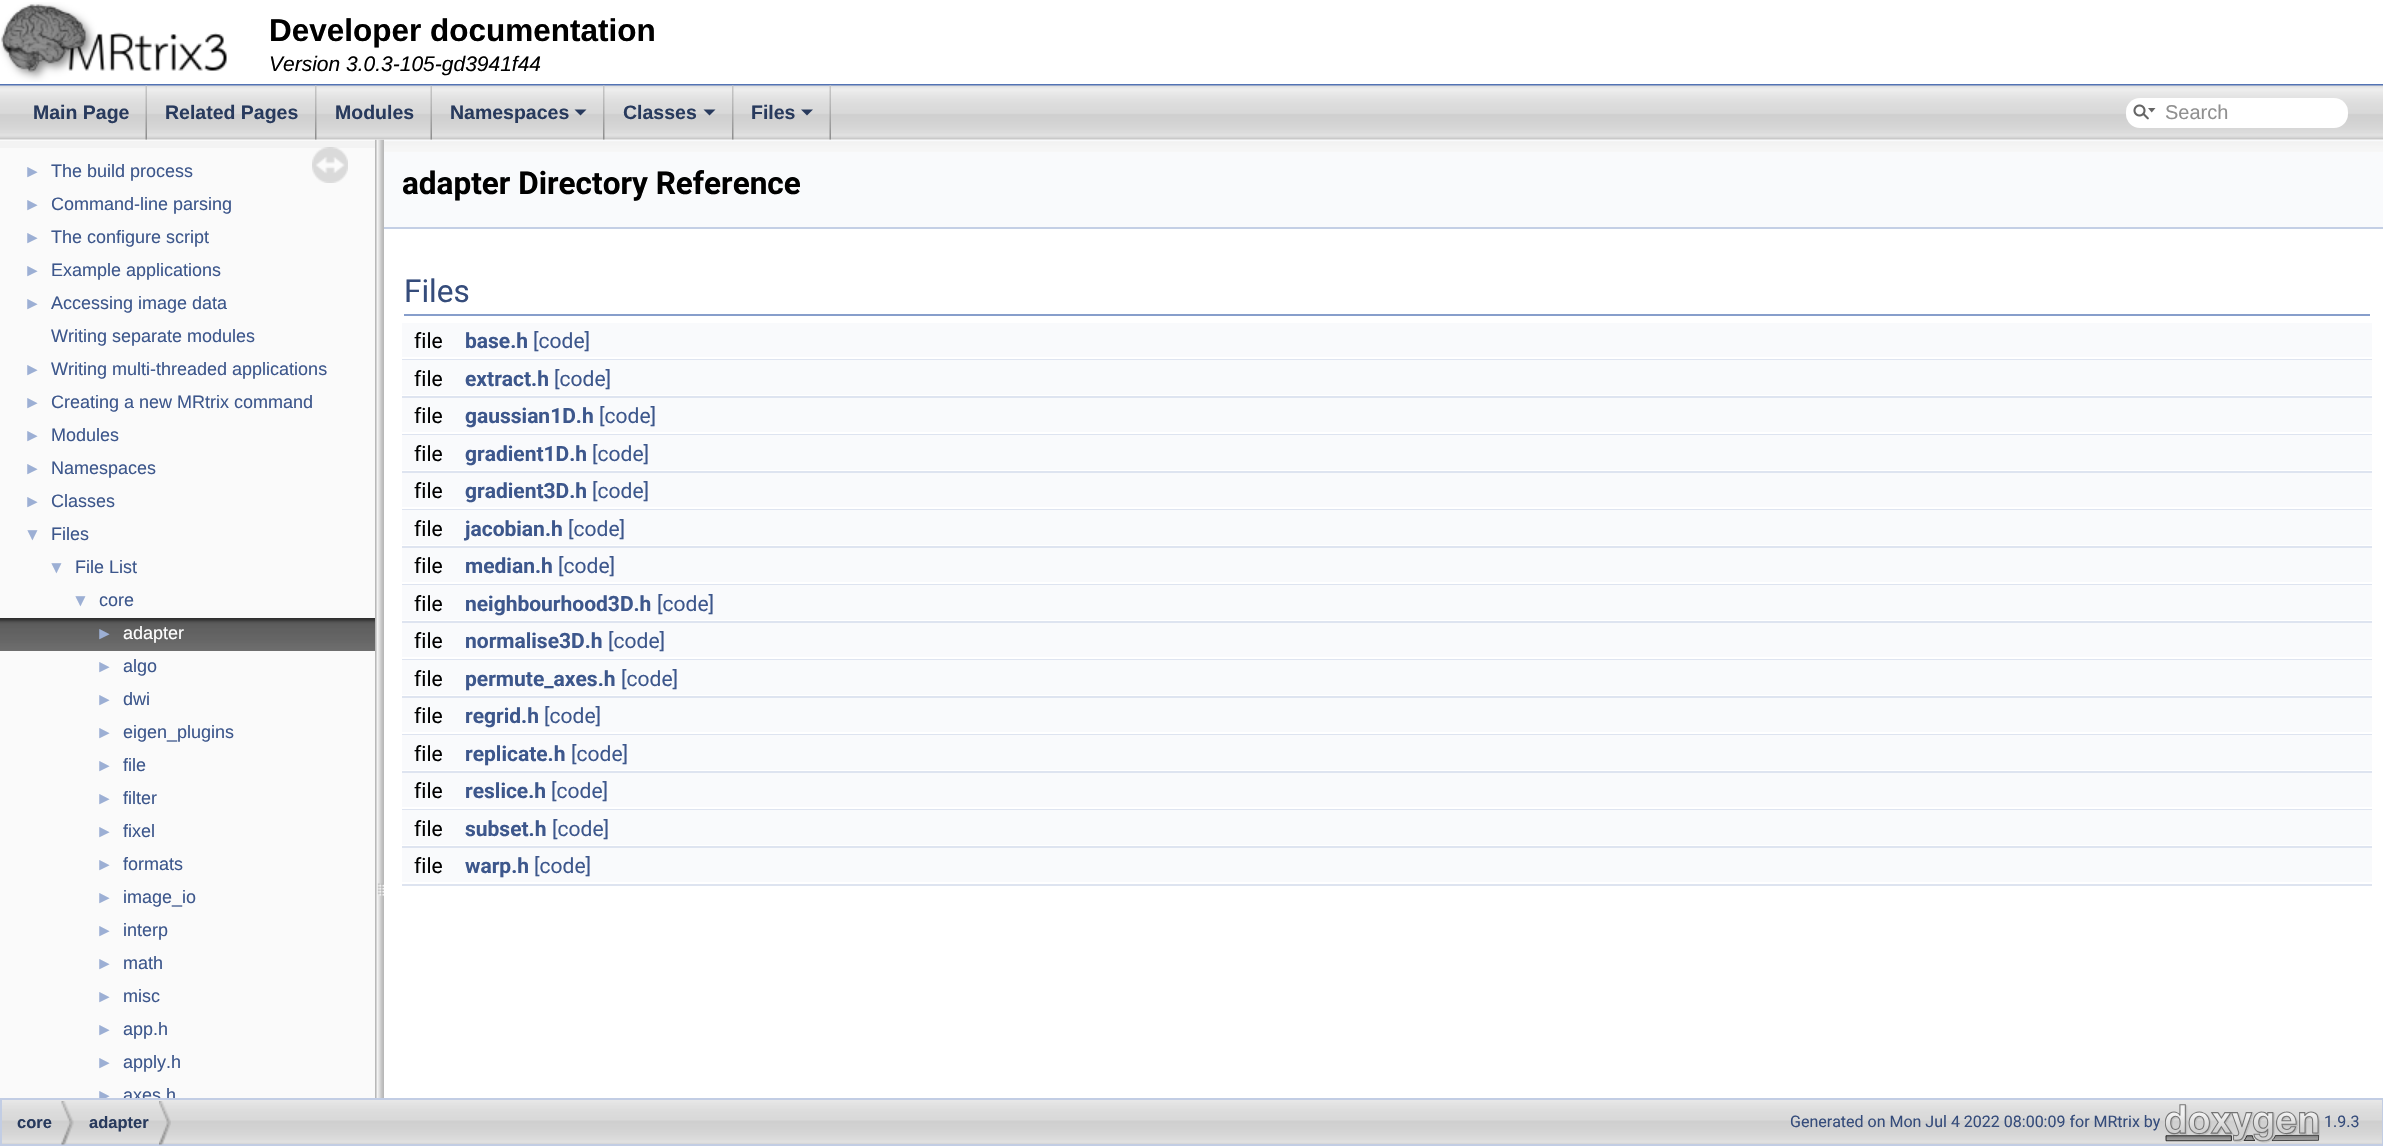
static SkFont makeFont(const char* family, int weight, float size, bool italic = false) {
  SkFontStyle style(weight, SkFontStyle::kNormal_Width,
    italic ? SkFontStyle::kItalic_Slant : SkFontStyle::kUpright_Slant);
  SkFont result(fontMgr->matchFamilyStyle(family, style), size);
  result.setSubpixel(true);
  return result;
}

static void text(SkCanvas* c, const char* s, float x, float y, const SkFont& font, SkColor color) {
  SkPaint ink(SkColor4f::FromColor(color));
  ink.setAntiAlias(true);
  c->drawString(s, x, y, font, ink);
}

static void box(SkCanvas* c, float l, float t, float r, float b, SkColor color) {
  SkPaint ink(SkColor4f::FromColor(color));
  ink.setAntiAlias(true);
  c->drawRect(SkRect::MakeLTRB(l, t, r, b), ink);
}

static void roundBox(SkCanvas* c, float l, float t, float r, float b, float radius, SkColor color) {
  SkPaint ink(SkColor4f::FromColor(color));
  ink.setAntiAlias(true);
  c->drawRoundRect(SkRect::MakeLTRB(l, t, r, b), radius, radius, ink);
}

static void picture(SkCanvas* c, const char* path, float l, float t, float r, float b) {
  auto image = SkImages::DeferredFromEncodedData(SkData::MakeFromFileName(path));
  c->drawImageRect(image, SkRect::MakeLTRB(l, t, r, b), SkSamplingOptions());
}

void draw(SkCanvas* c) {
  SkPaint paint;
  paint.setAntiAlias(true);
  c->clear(0xffffffff);
  box(c, 0, 84, 2383, 86, 0xff5373b4);
  picture(c, "img_01.png", 0, 2, 227, 82);
  SkFont face1 = makeFont("Liberation Sans", 700, 31.5f);
  text(c, "Developer documentation", 269, 41, face1, 0xff000000);
  SkFont face2 = makeFont("Liberation Sans", 400, 21, true);
  text(c, "Version 3.0.3-105-gd3941f44", 269, 71, face2, 0xff000000);
  picture(c, "img_09.png", 375, 139, 384, 1098);
  picture(c, "img_02.png", 0, 85, 2383, 140);
  picture(c, "img_03.png", 145, 85, 147, 140);
  SkFont face3 = makeFont("Liberation Sans", 700, 19.5f);
  text(c, "Main Page", 33, 119, face3, 0xff283a5d);
  picture(c, "img_04.png", 315, 85, 317, 140);
  text(c, "Related Pages", 165, 119, face3, 0xff283a5d);
  picture(c, "img_05.png", 430, 85, 432, 140);
  text(c, "Modules", 335, 119, face3, 0xff283a5d);
  picture(c, "img_04.png", 603, 85, 605, 140);
  text(c, "Namespaces", 450, 119, face3, 0xff283a5d);
  paint.setColor(0xff283a5d);
  c->drawPath(SkPathBuilder().moveTo(574.5f, 109.5f).lineTo(586.5f, 109.5f).lineTo(580.5f, 115.5f).close().detach(), paint);
  picture(c, "img_04.png", 732, 85, 734, 140);
  text(c, "Classes", 623, 119, face3, 0xff283a5d);
  c->drawPath(SkPathBuilder().moveTo(703.5f, 109.5f).lineTo(715.5f, 109.5f).lineTo(709.5f, 115.5f).close().detach(), paint);
  picture(c, "img_03.png", 829, 85, 831, 140);
  text(c, "Files", 751, 119, face3, 0xff283a5d);
  c->drawPath(SkPathBuilder().moveTo(801, 109.5f).lineTo(813, 109.5f).lineTo(807, 115.5f).close().detach(), paint);
  roundBox(c, 2126, 98, 2348, 128, 14, 0xffffffff);
  picture(c, "img_06.png", 2133, 104, 2156, 120);
  SkFont face4 = makeFont("Liberation Sans", 400, 20);
  text(c, "Search", 2165, 119, face4, 0xff909090);
  box(c, 0, 140, 375, 1098, 0xfffafafa);
  box(c, 0, 141, 375, 148, 0xfff3f3f3);
  SkFont face5 = makeFont("Liberation Sans", 400, 17);
  text(c, "►", 24, 177, face5, 0xff9cafd4);
  SkFont face6 = makeFont("Liberation Sans", 400, 18);
  text(c, "The build process", 51, 177, face6, 0xff3d578c);
  text(c, "►", 24, 210, face5, 0xff9cafd4);
  text(c, "Command-line parsing", 51, 210, face6, 0xff3d578c);
  text(c, "►", 24, 243, face5, 0xff9cafd4);
  text(c, "The configure script", 51, 243, face6, 0xff3d578c);
  text(c, "►", 24, 276, face5, 0xff9cafd4);
  text(c, "Example applications", 51, 276, face6, 0xff3d578c);
  text(c, "►", 24, 309, face5, 0xff9cafd4);
  text(c, "Accessing image data", 51, 309, face6, 0xff3d578c);
  text(c, "Writing separate modules", 51, 342, face6, 0xff3d578c);
  text(c, "►", 24, 375, face5, 0xff9cafd4);
  text(c, "Writing multi-threaded applications", 51, 375, face6, 0xff3d578c);
  text(c, "►", 24, 408, face5, 0xff9cafd4);
  text(c, "Creating a new MRtrix command", 51, 408, face6, 0xff3d578c);
  text(c, "►", 24, 441, face5, 0xff9cafd4);
  text(c, "Modules", 51, 441, face6, 0xff3d578c);
  text(c, "►", 24, 474, face5, 0xff9cafd4);
  text(c, "Namespaces", 51, 474, face6, 0xff3d578c);
  text(c, "►", 24, 507, face5, 0xff9cafd4);
  text(c, "Classes", 51, 507, face6, 0xff3d578c);
  text(c, "▼", 24, 540, face5, 0xff9cafd4);
  text(c, "Files", 51, 540, face6, 0xff3d578c);
  text(c, "▼", 48, 573, face5, 0xff9cafd4);
  text(c, "File List", 75, 573, face6, 0xff3d578c);
  text(c, "▼", 72, 606, face5, 0xff9cafd4);
  text(c, "core", 99, 606, face6, 0xff3d578c);
  picture(c, "img_07.png", 0, 618, 375, 651);
  text(c, "►", 96, 639, face5, 0xff9cafd4);
  text(c, "adapter", 123, 639, face6, 0xffffffff);
  text(c, "►", 96, 672, face5, 0xff9cafd4);
  text(c, "algo", 123, 672, face6, 0xff3d578c);
  text(c, "►", 96, 705, face5, 0xff9cafd4);
  text(c, "dwi", 123, 705, face6, 0xff3d578c);
  text(c, "►", 96, 738, face5, 0xff9cafd4);
  text(c, "eigen_plugins", 123, 738, face6, 0xff3d578c);
  text(c, "►", 96, 771, face5, 0xff9cafd4);
  text(c, "file", 123, 771, face6, 0xff3d578c);
  text(c, "►", 96, 804, face5, 0xff9cafd4);
  text(c, "filter", 123, 804, face6, 0xff3d578c);
  text(c, "►", 96, 837, face5, 0xff9cafd4);
  text(c, "fixel", 123, 837, face6, 0xff3d578c);
  text(c, "►", 96, 870, face5, 0xff9cafd4);
  text(c, "formats", 123, 870, face6, 0xff3d578c);
  text(c, "►", 96, 903, face5, 0xff9cafd4);
  text(c, "image_io", 123, 903, face6, 0xff3d578c);
  text(c, "►", 96, 936, face5, 0xff9cafd4);
  text(c, "interp", 123, 936, face6, 0xff3d578c);
  text(c, "►", 96, 969, face5, 0xff9cafd4);
  text(c, "math", 123, 969, face6, 0xff3d578c);
  text(c, "►", 96, 1002, face5, 0xff9cafd4);
  text(c, "misc", 123, 1002, face6, 0xff3d578c);
  text(c, "►", 96, 1035, face5, 0xff9cafd4);
  text(c, "app.h", 123, 1035, face6, 0xff3d578c);
  text(c, "►", 96, 1068, face5, 0xff9cafd4);
  text(c, "apply.h", 123, 1068, face6, 0xff3d578c);
  c->save();
  c->clipRect(SkRect::MakeLTRB(0, 140, 375, 1098));
  text(c, "►", 96, 1101, face5, 0xff9cafd4);
  text(c, "axes.h", 123, 1101, face6, 0xff3d578c);
  c->restore();
  picture(c, "img_08.png", 312, 147, 348, 183);
  box(c, 384, 140, 2383, 227, 0xfff9fafc);
  picture(c, "img_10.png", 384, 141, 2383, 152);
  box(c, 384, 227, 2383, 229, 0xffc4cfe5);
  SkFont face7 = makeFont("Roboto", 700, 31.5f);
  text(c, "adapter Directory Reference", 402, 194, face7, 0xff000000);
  box(c, 404, 314, 2370, 316, 0xff879ecb);
  SkFont face8 = makeFont("Roboto", 400, 31.5f);
  text(c, "Files", 404, 302, face8, 0xff354c7b);
  box(c, 402, 323, 2372, 357, 0xfff9fafc);
  SkFont face9 = makeFont("Roboto", 400, 21);
  text(c, "file", 414, 348, face9, 0xff000000);
  SkFont face10 = makeFont("Roboto", 700, 21);
  text(c, "base.h", 465, 348, face10, 0xff3d578c);
  text(c, "[code]", 533, 348, face9, 0xff3d578c);
  box(c, 402, 359, 2372, 360, 0xffdee4f0);
  box(c, 402, 360, 2372, 395, 0xfff9fafc);
  text(c, "file", 414, 386, face9, 0xff000000);
  text(c, "extract.h", 465, 386, face10, 0xff3d578c);
  text(c, "[code]", 554, 386, face9, 0xff3d578c);
  box(c, 402, 396, 2372, 398, 0xffdee4f0);
  box(c, 402, 398, 2372, 432, 0xfff9fafc);
  text(c, "file", 414, 423, face9, 0xff000000);
  text(c, "gaussian1D.h", 465, 423, face10, 0xff3d578c);
  text(c, "[code]", 599, 423, face9, 0xff3d578c);
  box(c, 402, 434, 2372, 435, 0xffdee4f0);
  box(c, 402, 435, 2372, 470, 0xfff9fafc);
  text(c, "file", 414, 461, face9, 0xff000000);
  text(c, "gradient1D.h", 465, 461, face10, 0xff3d578c);
  text(c, "[code]", 592, 461, face9, 0xff3d578c);
  box(c, 402, 471, 2372, 473, 0xffdee4f0);
  box(c, 402, 473, 2372, 507, 0xfff9fafc);
  text(c, "file", 414, 498, face9, 0xff000000);
  text(c, "gradient3D.h", 465, 498, face10, 0xff3d578c);
  text(c, "[code]", 592, 498, face9, 0xff3d578c);
  box(c, 402, 509, 2372, 510, 0xffdee4f0);
  box(c, 402, 510, 2372, 545, 0xfff9fafc);
  text(c, "file", 414, 536, face9, 0xff000000);
  text(c, "jacobian.h", 465, 536, face10, 0xff3d578c);
  text(c, "[code]", 568, 536, face9, 0xff3d578c);
  box(c, 402, 546, 2372, 548, 0xffdee4f0);
  box(c, 402, 548, 2372, 582, 0xfff9fafc);
  text(c, "file", 414, 573, face9, 0xff000000);
  text(c, "median.h", 465, 573, face10, 0xff3d578c);
  text(c, "[code]", 558, 573, face9, 0xff3d578c);
  box(c, 402, 584, 2372, 585, 0xffdee4f0);
  box(c, 402, 585, 2372, 620, 0xfff9fafc);
  text(c, "file", 414, 611, face9, 0xff000000);
  text(c, "neighbourhood3D.h", 465, 611, face10, 0xff3d578c);
  text(c, "[code]", 657, 611, face9, 0xff3d578c);
  box(c, 402, 621, 2372, 623, 0xffdee4f0);
  box(c, 402, 623, 2372, 657, 0xfff9fafc);
  text(c, "file", 414, 648, face9, 0xff000000);
  text(c, "normalise3D.h", 465, 648, face10, 0xff3d578c);
  text(c, "[code]", 608, 648, face9, 0xff3d578c);
  box(c, 402, 659, 2372, 660, 0xffdee4f0);
  box(c, 402, 660, 2372, 695, 0xfff9fafc);
  text(c, "file", 414, 686, face9, 0xff000000);
  text(c, "permute_axes.h", 465, 686, face10, 0xff3d578c);
  text(c, "[code]", 621, 686, face9, 0xff3d578c);
  box(c, 402, 696, 2372, 698, 0xffdee4f0);
  box(c, 402, 698, 2372, 732, 0xfff9fafc);
  text(c, "file", 414, 723, face9, 0xff000000);
  text(c, "regrid.h", 465, 723, face10, 0xff3d578c);
  text(c, "[code]", 544, 723, face9, 0xff3d578c);
  box(c, 402, 734, 2372, 735, 0xffdee4f0);
  box(c, 402, 735, 2372, 770, 0xfff9fafc);
  text(c, "file", 414, 761, face9, 0xff000000);
  text(c, "replicate.h", 465, 761, face10, 0xff3d578c);
  text(c, "[code]", 571, 761, face9, 0xff3d578c);
  box(c, 402, 771, 2372, 773, 0xffdee4f0);
  box(c, 402, 773, 2372, 807, 0xfff9fafc);
  text(c, "file", 414, 798, face9, 0xff000000);
  text(c, "reslice.h", 465, 798, face10, 0xff3d578c);
  text(c, "[code]", 551, 798, face9, 0xff3d578c);
  box(c, 402, 809, 2372, 810, 0xffdee4f0);
  box(c, 402, 810, 2372, 845, 0xfff9fafc);
  text(c, "file", 414, 836, face9, 0xff000000);
  text(c, "subset.h", 465, 836, face10, 0xff3d578c);
  text(c, "[code]", 552, 836, face9, 0xff3d578c);
  box(c, 402, 846, 2372, 848, 0xffdee4f0);
  box(c, 402, 848, 2372, 882, 0xfff9fafc);
  text(c, "file", 414, 873, face9, 0xff000000);
  text(c, "warp.h", 465, 873, face10, 0xff3d578c);
  text(c, "[code]", 534, 873, face9, 0xff3d578c);
  box(c, 402, 884, 2372, 886, 0xffdee4f0);
  picture(c, "img_11.png", 2, 1100, 2382, 1144);
  paint.setStyle(SkPaint::kStroke_Style);
  paint.setStrokeWidth(2);
  paint.setColor(0xffc2cde4);
  c->drawRect(SkRect::MakeLTRB(1, 1099, 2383, 1145), paint);
  picture(c, "img_12.png", 61, 1101, 74, 1145);
  SkFont face11 = makeFont("Liberation Sans", 700, 16.5f);
  text(c, "core", 17, 1128, face11, 0xff283a5d);
  picture(c, "img_13.png", 159, 1101, 171, 1145);
  text(c, "adapter", 89, 1128, face11, 0xff283a5d);
  SkFont face12 = makeFont("Roboto", 400, 16);
  text(c, "Generated on Mon Jul 4 2022 08:00:09 for MRtrix by", 1790, 1127, face12, 0xff354c7b);
  picture(c, "img_14.png", 2165, 1104, 2320, 1143);
  text(c, "1.9.3", 2324, 1127, face12, 0xff354c7b);
}
